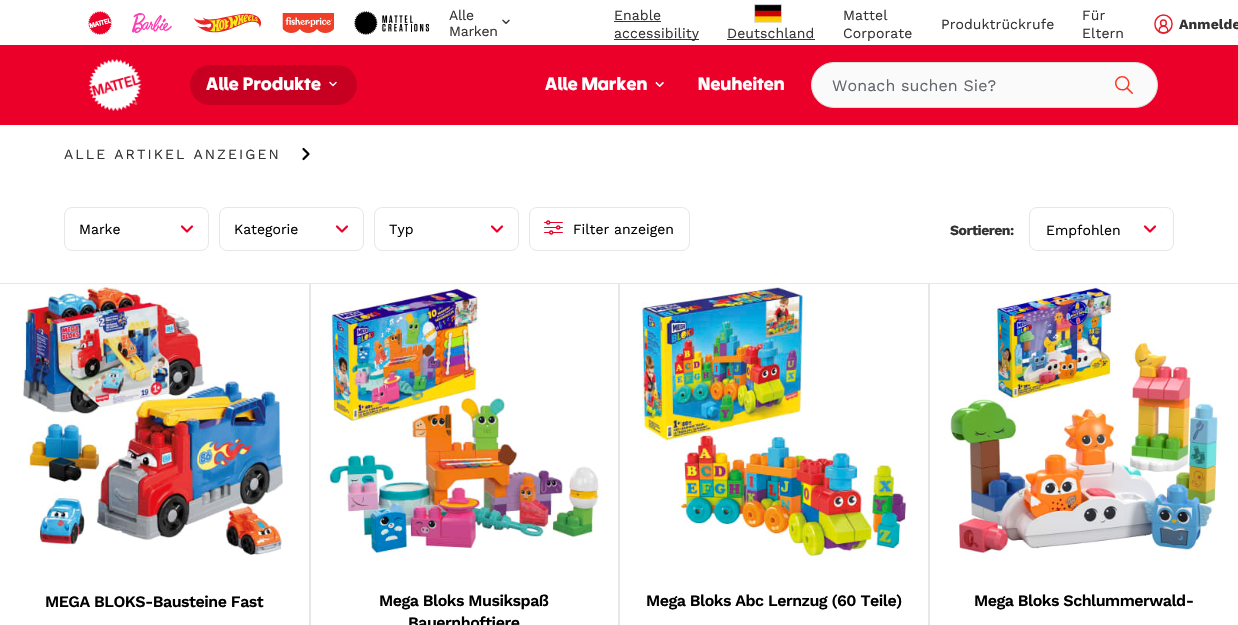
static SkFont makeFont(const char* family, int weight, float size, bool italic = false) {
  SkFontStyle style(weight, SkFontStyle::kNormal_Width,
    italic ? SkFontStyle::kItalic_Slant : SkFontStyle::kUpright_Slant);
  SkFont result(fontMgr->matchFamilyStyle(family, style), size);
  result.setSubpixel(true);
  return result;
}

static void text(SkCanvas* c, const char* s, float x, float y, const SkFont& font, SkColor color) {
  SkPaint ink(SkColor4f::FromColor(color));
  ink.setAntiAlias(true);
  c->drawString(s, x, y, font, ink);
}

static void spacedText(SkCanvas* c, const char* s, float x, float y, const SkFont& font, const SkPaint& ink, float letter, float word) {
  std::vector<SkGlyphID> glyphs(font.countText(s, strlen(s), SkTextEncoding::kUTF8));
  std::vector<float> xs(glyphs.size());
  font.textToGlyphs(s, strlen(s), SkTextEncoding::kUTF8, glyphs);
  font.getXPos(glyphs, xs, x);
  float extra = 0;
  for (size_t i = 0; i < glyphs.size(); i++) {
    xs[i] += extra;
    extra += letter + word * (glyphs[i] == font.unicharToGlyph(' '));
  }
  c->drawTextBlob(SkTextBlob::MakeFromPosHGlyphs(glyphs, xs, y, font), 0, 0, ink);
}

static void box(SkCanvas* c, float l, float t, float r, float b, SkColor color) {
  SkPaint ink(SkColor4f::FromColor(color));
  ink.setAntiAlias(true);
  c->drawRect(SkRect::MakeLTRB(l, t, r, b), ink);
}

static void roundBox(SkCanvas* c, float l, float t, float r, float b, float radius, SkColor color) {
  SkPaint ink(SkColor4f::FromColor(color));
  ink.setAntiAlias(true);
  c->drawRoundRect(SkRect::MakeLTRB(l, t, r, b), radius, radius, ink);
}

static void picture(SkCanvas* c, const char* path, float l, float t, float r, float b) {
  auto image = SkImages::DeferredFromEncodedData(SkData::MakeFromFileName(path));
  c->drawImageRect(image, SkRect::MakeLTRB(l, t, r, b), SkSamplingOptions());
}

void draw(SkCanvas* c) {
  SkPaint paint;
  paint.setAntiAlias(true);
  c->clear(0xffffffff);
  picture(c, "img_01.png", 88, 11, 112, 35);
  picture(c, "img_02.png", 132, 13, 172, 33);
  picture(c, "img_03.png", 193, 13, 261, 33);
  picture(c, "img_04.png", 282, 13, 334, 33);
  picture(c, "img_05.png", 354, 11, 429, 35);
  SkFont face1 = makeFont("Work Sans", 400, 14);
  paint.setColor(0xff333333);
  spacedText(c, "Alle", 449, 20, face1, paint, -0.25f, 0);
  spacedText(c, "Marken", 449, 36, face1, paint, -0.25f, 0);
  picture(c, "img_06.png", 502, 19, 510, 24);
  spacedText(c, "Enable", 614, 20, face1, paint, 0.1f, 0);
  box(c, 614, 21, 661, 22, 0xff333333);
  box(c, 614, 39, 699, 40, 0xff333333);
  spacedText(c, "accessibility", 614, 38, face1, paint, 0.1f, 0);
  spacedText(c, "Mattel", 843, 20, face1, paint, 0.1f, 0);
  spacedText(c, "Corporate", 843, 38, face1, paint, 0.1f, 0);
  spacedText(c, "Produktrückrufe", 941, 29, face1, paint, 0.1f, 0);
  spacedText(c, "Für", 1082, 20, face1, paint, 0.1f, 0);
  spacedText(c, "Eltern", 1082, 38, face1, paint, 0.1f, 0);
  picture(c, "img_07.png", 1154, 14, 1173, 34);
  SkFont face2 = makeFont("Work Sans", 700, 14);
  spacedText(c, "Anmelde", 1179, 29, face2, paint, 0.1f, 0);
  picture(c, "img_08.png", 754, 4, 782, 23);
  spacedText(c, "Deutschland", 727, 38, face1, paint, 0.1f, 0);
  box(c, 727, 39, 815, 40, 0xff333333);
  box(c, 0, 45, 1238, 125, 0xffea0028);
  picture(c, "img_09.png", 88, 59, 142, 111);
  roundBox(c, 190, 65, 357, 105, 20, 0xffc70022);
  SkFont face3 = makeFont("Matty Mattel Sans", 700, 19);
  paint.setColor(0xffffffff);
  spacedText(c, "Alle Produkte", 206, 90, face3, paint, 0.2f, 0);
  picture(c, "img_10.png", 329, 81, 337, 87);
  spacedText(c, "Alle Marken", 545, 90, face3, paint, 0.2f, 0);
  picture(c, "img_11.png", 655, 82, 664, 87);
  spacedText(c, "Neuheiten", 698, 90, face3, paint, 0.2f, 0);
  paint.setColor(0xfffafafa);
  c->drawRoundRect(SkRect::MakeLTRB(811.5f, 62.5f, 1157.5f, 107.5f), 22.5f, 22.5f, paint);
  paint.setStyle(SkPaint::kStroke_Style);
  paint.setStrokeWidth(1);
  paint.setColor(0xffdcdcdc);
  c->drawRoundRect(SkRect::MakeLTRB(811.5f, 62.5f, 1157.5f, 107.5f), 22.5f, 22.5f, paint);
  SkFont face4 = makeFont("Work Sans", 400, 16);
  paint.setStyle(SkPaint::kFill_Style);
  paint.setColor(0xff62656a);
  spacedText(c, "Wonach suchen Sie?", 832, 91, face4, paint, 0.1f, 0);
  picture(c, "img_12.png", 1115, 76, 1133, 94);
  paint.setColor(0xff333333);
  spacedText(c, "ALLE ARTIKEL ANZEIGEN", 64, 159, face1, paint, 2.1f, 0);
  picture(c, "img_13.png", 302, 147, 310, 161);
  paint.setStyle(SkPaint::kStroke_Style);
  paint.setColor(0xffe7e7e7);
  c->drawRoundRect(SkRect::MakeLTRB(64.5f, 207.5f, 208.5f, 250.5f), 7.5f, 7.5f, paint);
  text(c, "Marke", 79, 234, face1, 0xff000000);
  paint.setStrokeWidth(2.2f);
  paint.setStrokeCap(SkPaint::kRound_Cap);
  paint.setStrokeJoin(SkPaint::kRound_Join);
  paint.setColor(0xffea0028);
  c->drawPath(SkPathBuilder().moveTo(192, 226.5f).lineTo(187, 231.5f).lineTo(182, 226.5f).detach(), paint);
  paint.setStrokeWidth(1);
  paint.setStrokeCap(SkPaint::kButt_Cap);
  paint.setStrokeJoin(SkPaint::kMiter_Join);
  paint.setColor(0xffe7e7e7);
  c->drawRoundRect(SkRect::MakeLTRB(219.5f, 207.5f, 363.5f, 250.5f), 7.5f, 7.5f, paint);
  text(c, "Kategorie", 234, 234, face1, 0xff000000);
  paint.setStrokeWidth(2.2f);
  paint.setStrokeCap(SkPaint::kRound_Cap);
  paint.setStrokeJoin(SkPaint::kRound_Join);
  paint.setColor(0xffea0028);
  c->drawPath(SkPathBuilder().moveTo(347, 226.5f).lineTo(342, 231.5f).lineTo(337, 226.5f).detach(), paint);
  paint.setStrokeWidth(1);
  paint.setStrokeCap(SkPaint::kButt_Cap);
  paint.setStrokeJoin(SkPaint::kMiter_Join);
  paint.setColor(0xffe7e7e7);
  c->drawRoundRect(SkRect::MakeLTRB(374.5f, 207.5f, 518.5f, 250.5f), 7.5f, 7.5f, paint);
  text(c, "Typ", 389, 234, face1, 0xff000000);
  paint.setStrokeWidth(2.2f);
  paint.setStrokeCap(SkPaint::kRound_Cap);
  paint.setStrokeJoin(SkPaint::kRound_Join);
  paint.setColor(0xffea0028);
  c->drawPath(SkPathBuilder().moveTo(502, 226.5f).lineTo(497, 231.5f).lineTo(492, 226.5f).detach(), paint);
  paint.setStrokeWidth(1);
  paint.setStrokeCap(SkPaint::kButt_Cap);
  paint.setStrokeJoin(SkPaint::kMiter_Join);
  paint.setColor(0xffe7e7e7);
  c->drawRoundRect(SkRect::MakeLTRB(529.5f, 207.5f, 689.5f, 250.5f), 7.5f, 7.5f, paint);
  picture(c, "img_14.png", 544, 220, 563, 235);
  text(c, "Filter anzeigen", 573, 234, face1, 0xff000000);
  paint.setStyle(SkPaint::kFill_Style);
  paint.setColor(0xff333333);
  spacedText(c, "Sortieren:", 950, 235, face2, paint, -0.5f, 0);
  paint.setStyle(SkPaint::kStroke_Style);
  paint.setColor(0xffe7e7e7);
  c->drawRoundRect(SkRect::MakeLTRB(1029.5f, 207.5f, 1173.5f, 250.5f), 7.5f, 7.5f, paint);
  text(c, "Empfohlen", 1046, 235, face1, 0xff000000);
  paint.setStrokeWidth(2.2f);
  paint.setStrokeCap(SkPaint::kRound_Cap);
  paint.setStrokeJoin(SkPaint::kRound_Join);
  paint.setColor(0xffea0028);
  c->drawPath(SkPathBuilder().moveTo(1155, 226.5f).lineTo(1150, 231.5f).lineTo(1145, 226.5f).detach(), paint);
  paint.setStyle(SkPaint::kFill_Style);
  paint.setColor(0xffe7e7e7);
  c->drawPath(SkPathBuilder().moveTo(0, 283).lineTo(310, 283).lineTo(309, 284).lineTo(0, 284).close().detach(), paint);
  paint.setColor(0x1a0e0e0e);
  c->drawPath(SkPathBuilder().moveTo(310, 283).lineTo(310, 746).lineTo(309, 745).lineTo(309, 284).close().detach(), paint);
  picture(c, "img_15.png", 22, 284, 283, 555);
  SkFont face5 = makeFont("Work Sans", 600, 16);
  paint.setColor(0xff000000);
  spacedText(c, "MEGA BLOKS-Bausteine Fast", 45, 607, face5, paint, -0.5f, 0);
  paint.setStyle(SkPaint::kStroke_Style);
  paint.setStrokeWidth(1);
  paint.setStrokeCap(SkPaint::kButt_Cap);
  paint.setStrokeJoin(SkPaint::kMiter_Join);
  paint.setColor(0xffe7e7e7);
  c->drawRect(SkRect::MakeLTRB(310.5f, 283.5f, 618.5f, 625.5f), paint);
  picture(c, "img_16.png", 327, 284, 602, 554);
  paint.setStyle(SkPaint::kFill_Style);
  paint.setColor(0xff000000);
  spacedText(c, "Mega Bloks Musikspaß", 379, 606, face5, paint, -0.5f, 0);
  spacedText(c, "Bauernhoftiere", 408, 628, face5, paint, -0.5f, 0);
  paint.setStyle(SkPaint::kStroke_Style);
  paint.setColor(0xffe7e7e7);
  c->drawRect(SkRect::MakeLTRB(619.5f, 283.5f, 928.5f, 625.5f), paint);
  picture(c, "img_17.png", 642, 284, 906, 560);
  paint.setStyle(SkPaint::kFill_Style);
  paint.setColor(0xff000000);
  spacedText(c, "Mega Bloks Abc Lernzug (60 Teile)", 646, 606, face5, paint, -0.5f, 0);
  paint.setStyle(SkPaint::kStroke_Style);
  paint.setColor(0xffe7e7e7);
  c->drawRect(SkRect::MakeLTRB(929.5f, 283.5f, 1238.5f, 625.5f), paint);
  picture(c, "img_18.png", 950, 284, 1221, 554);
  paint.setStyle(SkPaint::kFill_Style);
  paint.setColor(0xff000000);
  spacedText(c, "Mega Bloks Schlummerwald-", 974, 606, face5, paint, -0.5f, 0);
}
